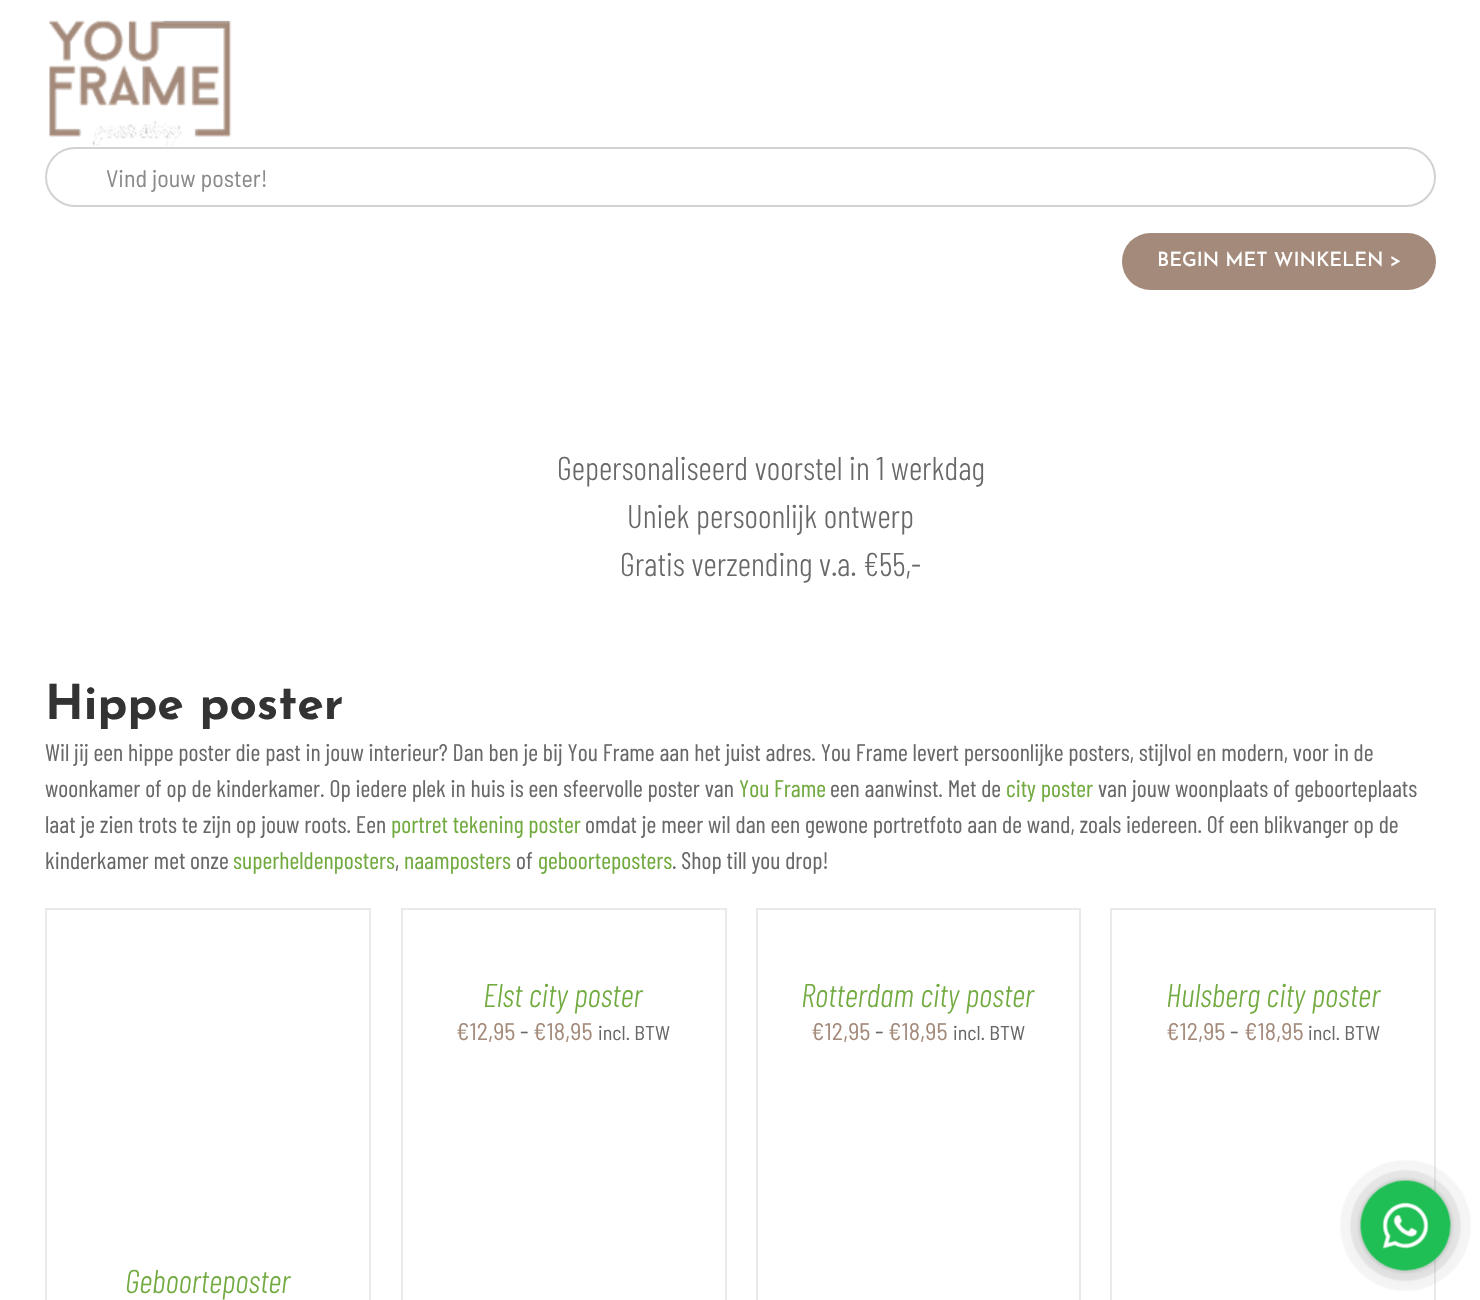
static SkFont makeFont(const char* family, int weight, float size, bool italic = false) {
  SkFontStyle style(weight, SkFontStyle::kNormal_Width,
    italic ? SkFontStyle::kItalic_Slant : SkFontStyle::kUpright_Slant);
  SkFont result(fontMgr->matchFamilyStyle(family, style), size);
  result.setSubpixel(true);
  return result;
}

static void text(SkCanvas* c, const char* s, float x, float y, const SkFont& font, SkColor color) {
  SkPaint ink(SkColor4f::FromColor(color));
  ink.setAntiAlias(true);
  c->drawString(s, x, y, font, ink);
}

static void box(SkCanvas* c, float l, float t, float r, float b, SkColor color) {
  SkPaint ink(SkColor4f::FromColor(color));
  ink.setAntiAlias(true);
  c->drawRect(SkRect::MakeLTRB(l, t, r, b), ink);
}

static void roundBox(SkCanvas* c, float l, float t, float r, float b, float radius, SkColor color) {
  SkPaint ink(SkColor4f::FromColor(color));
  ink.setAntiAlias(true);
  c->drawRoundRect(SkRect::MakeLTRB(l, t, r, b), radius, radius, ink);
}

static void picture(SkCanvas* c, const char* path, float l, float t, float r, float b) {
  auto image = SkImages::DeferredFromEncodedData(SkData::MakeFromFileName(path));
  c->drawImageRect(image, SkRect::MakeLTRB(l, t, r, b), SkSamplingOptions());
}

void draw(SkCanvas* c) {
  SkPaint paint;
  paint.setAntiAlias(true);
  c->clear(0xffffffff);
  picture(c, "img_01.png", 49, 20, 232, 146);
  paint.setStyle(SkPaint::kStroke_Style);
  paint.setStrokeWidth(2);
  paint.setColor(0xffd2d2d2);
  c->drawRoundRect(SkRect::MakeLTRB(46, 148, 1435, 206), 29, 29, paint);
  SkFont face1 = makeFont("Barlow Semi Condensed", 400, 24);
  text(c, "Vind jouw poster!", 106, 187, face1, 0xff8c8a8a);
  roundBox(c, 1122, 233, 1436, 290, 28.5f, 0xffa48a7a);
  SkFont face2 = makeFont("Josefin Sans", 500, 19.5f);
  text(c, "BEGIN MET WINKELEN >", 1157, 266, face2, 0xffffffff);
  SkFont face3 = makeFont("Barlow Condensed", 300, 33);
  text(c, "Gepersonaliseerd voorstel in 1 werkdag", 557, 480, face3, 0xff686868);
  text(c, "Uniek persoonlijk ontwerp", 627, 528, face3, 0xff686868);
  text(c, "Gratis verzending v.a. €55,-", 620, 576, face3, 0xff686868);
  SkFont face4 = makeFont("Josefin Sans", 700, 48);
  text(c, "Hippe poster", 45, 719, face4, 0xff333333);
  SkFont face5 = makeFont("Barlow Condensed", 400, 24);
  text(c, "Wil jij een hippe poster die past in jouw interieur? Dan ben je bij You Frame aan het juist adres. You Frame levert persoonlijke posters, stijlvol en modern, voor in de", 45, 761, face5, 0xff686868);
  text(c, "woonkamer of op de kinderkamer. Op iedere plek in huis is een sfeervolle poster van", 45, 797, face5, 0xff686868);
  text(c, "You Frame", 739, 797, face5, 0xff71aa3f);
  text(c, "een aanwinst. Met de", 830, 797, face5, 0xff686868);
  text(c, "city poster", 1006, 797, face5, 0xff71aa3f);
  text(c, "van jouw woonplaats of geboorteplaats", 1098, 797, face5, 0xff686868);
  text(c, "laat je zien trots te zijn op jouw roots. Een", 45, 833, face5, 0xff686868);
  text(c, "portret tekening poster", 391, 833, face5, 0xff71aa3f);
  text(c, "omdat je meer wil dan een gewone portretfoto aan de wand, zoals iedereen. Of een blikvanger op de", 585, 833, face5, 0xff686868);
  text(c, "kinderkamer met onze", 45, 869, face5, 0xff686868);
  text(c, "superheldenposters", 233, 869, face5, 0xff71aa3f);
  text(c, ",", 395, 869, face5, 0xff686868);
  text(c, "naamposters", 404, 869, face5, 0xff71aa3f);
  text(c, "of", 516, 869, face5, 0xff686868);
  text(c, "geboorteposters", 538, 869, face5, 0xff71aa3f);
  text(c, ". Shop till you drop!", 672, 869, face5, 0xff686868);
  box(c, 401, 908, 726, 910, 0xffebeaea);
  box(c, 725, 908, 727, 1300, 0xffebeaea);
  box(c, 401, 908, 403, 1300, 0xffebeaea);
  SkFont face6 = makeFont("Barlow Condensed", 300, 33, true);
  text(c, "Elst city poster", 483, 1007, face6, 0xff71aa3f);
  text(c, "€12,95", 456, 1040, face1, 0xffa48a7a);
  text(c, "-", 520, 1040, face1, 0xff686868);
  text(c, "€18,95", 533, 1040, face1, 0xffa48a7a);
  SkFont face7 = makeFont("Barlow Semi Condensed", 400, 20);
  text(c, "incl. BTW", 598, 1040, face7, 0xff686868);
  box(c, 756, 908, 1080, 910, 0xffebeaea);
  box(c, 1079, 908, 1081, 1300, 0xffebeaea);
  box(c, 756, 908, 758, 1300, 0xffebeaea);
  text(c, "Rotterdam city poster", 801, 1007, face6, 0xff71aa3f);
  text(c, "€12,95", 811, 1040, face1, 0xffa48a7a);
  text(c, "-", 875, 1040, face1, 0xff686868);
  text(c, "€18,95", 888, 1040, face1, 0xffa48a7a);
  text(c, "incl. BTW", 953, 1040, face7, 0xff686868);
  box(c, 1110, 908, 1436, 910, 0xffebeaea);
  box(c, 1434, 908, 1436, 1300, 0xffebeaea);
  box(c, 1110, 908, 1112, 1300, 0xffebeaea);
  text(c, "Hulsberg city poster", 1166, 1007, face6, 0xff71aa3f);
  text(c, "€12,95", 1166, 1040, face1, 0xffa48a7a);
  text(c, "-", 1230, 1040, face1, 0xff686868);
  text(c, "€18,95", 1244, 1040, face1, 0xffa48a7a);
  text(c, "incl. BTW", 1308, 1040, face7, 0xff686868);
  box(c, 45, 908, 371, 910, 0xffebeaea);
  box(c, 369, 908, 371, 1300, 0xffebeaea);
  box(c, 45, 908, 47, 1300, 0xffebeaea);
  text(c, "Geboorteposter", 125, 1293, face6, 0xff71aa3f);
  picture(c, "img_02.png", 1340, 1160, 1471, 1291);
}
